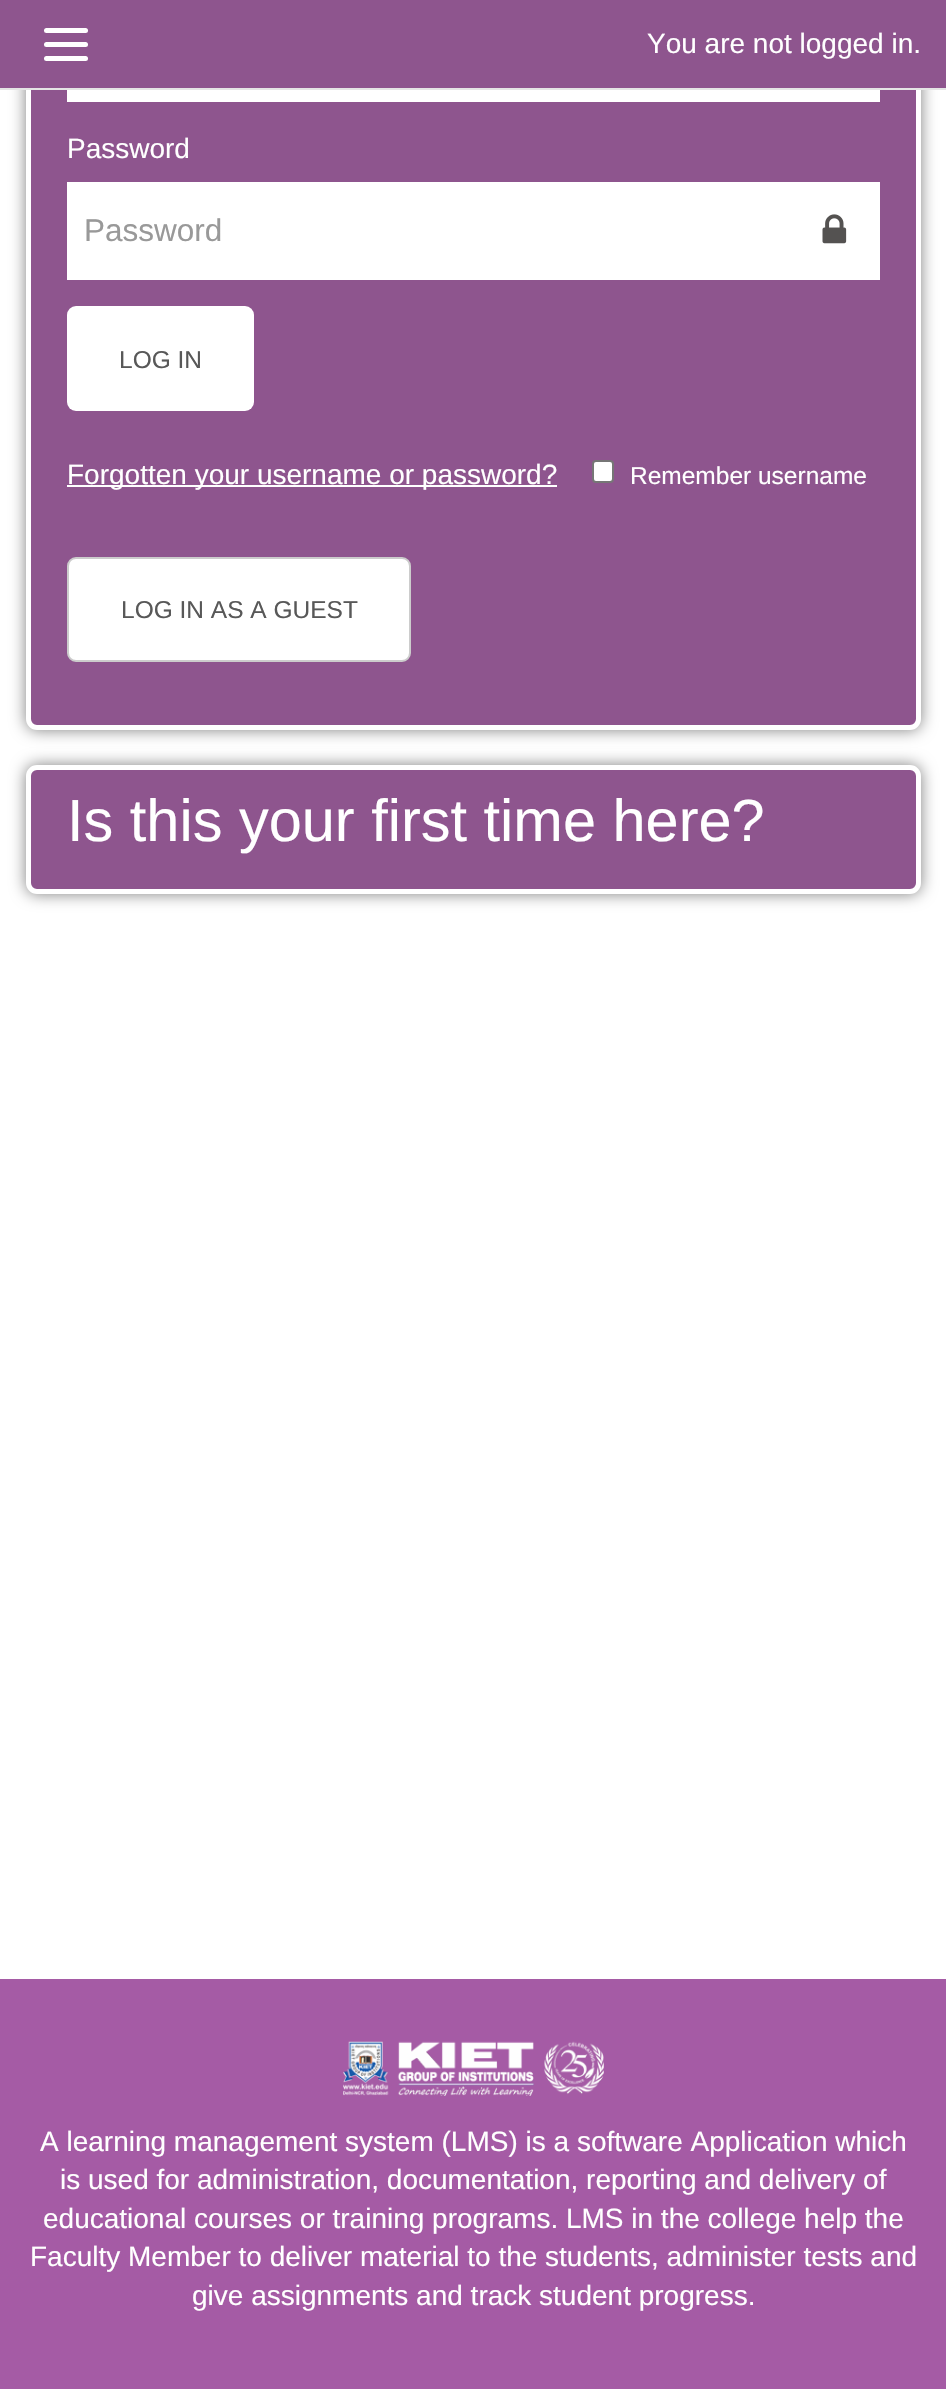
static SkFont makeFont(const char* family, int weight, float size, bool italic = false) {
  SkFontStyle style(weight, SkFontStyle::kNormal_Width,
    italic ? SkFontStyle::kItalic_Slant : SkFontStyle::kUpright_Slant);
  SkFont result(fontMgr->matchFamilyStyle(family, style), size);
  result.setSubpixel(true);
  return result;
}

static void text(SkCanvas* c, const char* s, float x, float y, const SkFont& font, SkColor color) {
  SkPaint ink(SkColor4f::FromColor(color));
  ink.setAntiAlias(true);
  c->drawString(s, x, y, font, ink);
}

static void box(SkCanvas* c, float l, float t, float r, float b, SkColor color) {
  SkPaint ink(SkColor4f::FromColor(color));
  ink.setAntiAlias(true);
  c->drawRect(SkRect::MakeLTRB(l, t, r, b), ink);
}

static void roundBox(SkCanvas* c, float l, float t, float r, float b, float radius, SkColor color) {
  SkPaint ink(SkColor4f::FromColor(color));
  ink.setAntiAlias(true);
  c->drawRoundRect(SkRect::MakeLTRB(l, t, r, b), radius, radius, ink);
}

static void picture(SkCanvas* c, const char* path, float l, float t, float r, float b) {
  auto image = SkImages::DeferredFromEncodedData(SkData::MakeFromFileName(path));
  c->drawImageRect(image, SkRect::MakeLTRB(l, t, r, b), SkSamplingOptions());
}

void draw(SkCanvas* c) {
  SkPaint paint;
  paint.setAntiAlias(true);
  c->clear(0xffffffff);
  paint.setColor(0x80000000);
  paint.setMaskFilter(SkMaskFilter::MakeBlur(kNormal_SkBlurStyle, 8));
  c->drawRoundRect(SkRect::MakeLTRB(26, -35, 921, 730), 11, 11, paint);
  paint.setMaskFilter(nullptr);
  paint.setColor(0xff8e558e);
  c->drawRoundRect(SkRect::MakeLTRB(28.5f, -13.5f, 918.5f, 727.5f), 8.5f, 8.5f, paint);
  paint.setStyle(SkPaint::kStroke_Style);
  paint.setStrokeWidth(5);
  paint.setColor(0xffffffff);
  c->drawRoundRect(SkRect::MakeLTRB(28.5f, -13.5f, 918.5f, 727.5f), 8.5f, 8.5f, paint);
  box(c, 0, 88, 946, 90, 0xffe5e5e5);
  box(c, 0, 0, 946, 88, 0xff8e558e);
  roundBox(c, 44, 28, 88, 33, 2.5f, 0xffffffff);
  roundBox(c, 44, 42, 88, 47, 2.5f, 0xffffffff);
  roundBox(c, 44, 56, 88, 61, 2.5f, 0xffffffff);
  SkFont face1 = makeFont("Liberation Sans", 400, 28);
  text(c, "You are not logged in.", 647, 53, face1, 0xffffffff);
  box(c, 67, 90, 880, 102, 0xffffffff);
  text(c, "Password", 67, 158, face1, 0xffffffff);
  box(c, 67, 182, 880, 280, 0xffffffff);
  SkFont face2 = makeFont("Liberation Sans", 400, 31.5f);
  text(c, "Password", 84, 241, face2, 0xff999999);
  picture(c, "img_01.png", 822, 214, 847, 244);
  roundBox(c, 67, 306, 254, 411, 9, 0xffffffff);
  SkFont face3 = makeFont("Liberation Sans", 400, 24.5f);
  text(c, "LOG IN", 119, 368, face3, 0xff585858);
  box(c, 67, 485, 557, 487, 0xffffffff);
  text(c, "Forgotten your username or password?", 67, 484, face1, 0xffffffff);
  paint.setStyle(SkPaint::kFill_Style);
  c->drawRoundRect(SkRect::MakeLTRB(593, 461, 613, 482), 3, 3, paint);
  paint.setStyle(SkPaint::kStroke_Style);
  paint.setStrokeWidth(2);
  paint.setColor(0xff767676);
  c->drawRoundRect(SkRect::MakeLTRB(593, 461, 613, 482), 3, 3, paint);
  text(c, "Remember username", 630, 484, face3, 0xffffffff);
  paint.setStyle(SkPaint::kFill_Style);
  paint.setColor(0xffffffff);
  c->drawRoundRect(SkRect::MakeLTRB(68, 558, 410, 661), 8, 8, paint);
  paint.setStyle(SkPaint::kStroke_Style);
  paint.setColor(0xffcccccc);
  c->drawRoundRect(SkRect::MakeLTRB(68, 558, 410, 661), 8, 8, paint);
  text(c, "LOG IN AS A GUEST", 121, 618, face3, 0xff585858);
  paint.setStyle(SkPaint::kFill_Style);
  paint.setColor(0x80000000);
  paint.setMaskFilter(SkMaskFilter::MakeBlur(kNormal_SkBlurStyle, 8));
  c->drawRoundRect(SkRect::MakeLTRB(26, 765, 921, 894), 11, 11, paint);
  paint.setMaskFilter(nullptr);
  paint.setColor(0xff8e558e);
  c->drawRoundRect(SkRect::MakeLTRB(28.5f, 767.5f, 918.5f, 891.5f), 8.5f, 8.5f, paint);
  paint.setStyle(SkPaint::kStroke_Style);
  paint.setStrokeWidth(5);
  paint.setColor(0xffffffff);
  c->drawRoundRect(SkRect::MakeLTRB(28.5f, 767.5f, 918.5f, 891.5f), 8.5f, 8.5f, paint);
  SkFont face4 = makeFont("Liberation Sans", 400, 59.5f);
  text(c, "Is this your first time here?", 67, 841, face4, 0xffffffff);
  box(c, 0, 1979, 946, 2389, 0xffa55ba5);
  picture(c, "img_02.png", 343, 2041, 604, 2096);
  text(c, "A learning management system (LMS) is a software Application which", 40, 2151, face1, 0xffffffff);
  text(c, "is used for administration, documentation, reporting and delivery of", 60, 2189, face1, 0xffffffff);
  text(c, "educational courses or training programs. LMS in the college help the", 43, 2228, face1, 0xffffffff);
  text(c, "Faculty Member to deliver material to the students, administer tests and", 30, 2266, face1, 0xffffffff);
  text(c, "give assignments and track student progress.", 192, 2305, face1, 0xffffffff);
}
